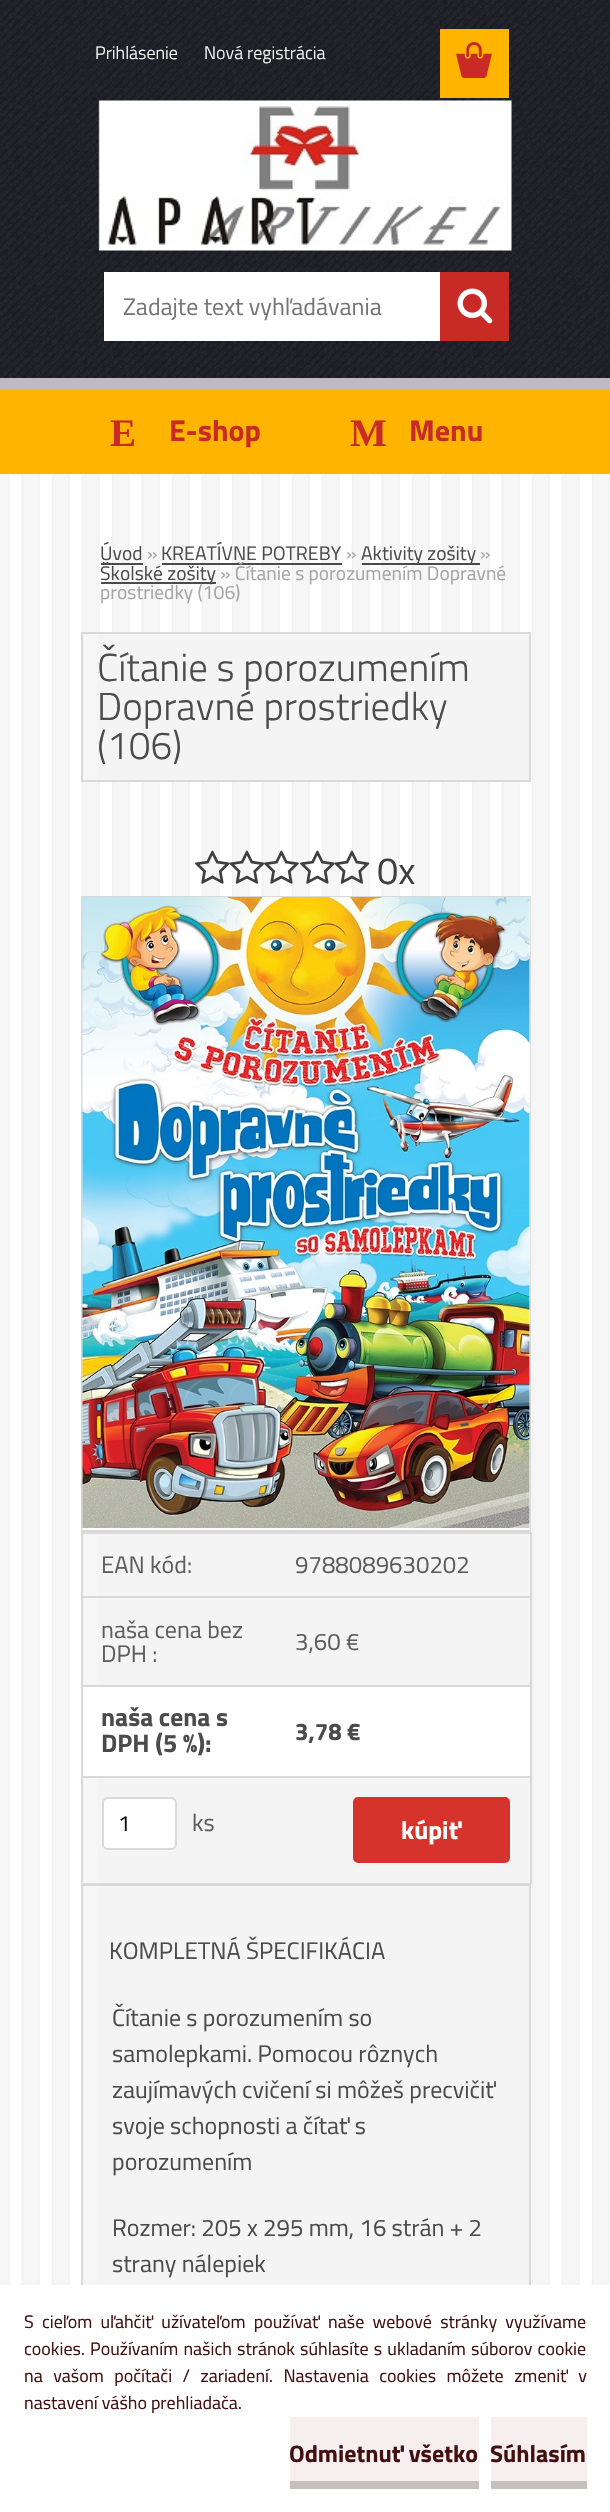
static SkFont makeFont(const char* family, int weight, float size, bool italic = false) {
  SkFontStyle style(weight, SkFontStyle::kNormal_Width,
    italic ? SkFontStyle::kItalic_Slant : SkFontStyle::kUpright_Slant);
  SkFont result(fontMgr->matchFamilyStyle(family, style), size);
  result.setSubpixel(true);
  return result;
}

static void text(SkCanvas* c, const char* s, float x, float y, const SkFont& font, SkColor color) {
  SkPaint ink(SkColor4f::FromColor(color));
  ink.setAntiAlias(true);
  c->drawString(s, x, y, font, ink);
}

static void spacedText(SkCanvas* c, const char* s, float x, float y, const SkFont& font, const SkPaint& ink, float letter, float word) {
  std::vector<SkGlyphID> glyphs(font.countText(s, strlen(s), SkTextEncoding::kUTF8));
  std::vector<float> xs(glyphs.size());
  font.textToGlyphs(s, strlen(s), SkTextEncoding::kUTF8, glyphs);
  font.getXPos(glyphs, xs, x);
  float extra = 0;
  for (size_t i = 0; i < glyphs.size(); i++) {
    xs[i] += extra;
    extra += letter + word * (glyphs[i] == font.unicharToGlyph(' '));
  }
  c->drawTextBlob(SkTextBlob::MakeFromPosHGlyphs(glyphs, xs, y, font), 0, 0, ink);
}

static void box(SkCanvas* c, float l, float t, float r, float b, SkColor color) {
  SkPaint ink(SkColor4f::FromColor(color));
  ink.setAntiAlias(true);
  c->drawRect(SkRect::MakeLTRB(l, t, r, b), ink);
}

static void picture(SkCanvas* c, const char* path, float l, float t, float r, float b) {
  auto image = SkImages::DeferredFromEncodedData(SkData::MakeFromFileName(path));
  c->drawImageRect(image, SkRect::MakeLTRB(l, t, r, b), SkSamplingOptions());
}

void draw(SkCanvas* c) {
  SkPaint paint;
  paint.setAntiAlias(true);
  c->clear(0xffffffff);
  picture(c, "img_01.png", 0, 474, 610, 2512);
  box(c, 0, 0, 610, 378, 0xff24252d);
  picture(c, "img_09.png", 0, 0, 610, 378);
  SkFont face1 = makeFont("Titillium Web", 300, 18);
  text(c, "Prihlásenie", 95, 59, face1, 0xffffffff);
  text(c, "Nová registrácia", 204, 59, face1, 0xffffffff);
  box(c, 440, 29, 509, 98, 0xffffb400);
  picture(c, "img_02.png", 456, 42, 492, 78);
  paint.setColor(0xffffb400);
  c->drawPath(SkPathBuilder().moveTo(0, 388).lineTo(0, 474).lineTo(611, 474).lineTo(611, 86).lineTo(610, 86).lineTo(610, 388).close().detach(), paint);
  SkFont face2 = makeFont("Liberation Serif", 700, 39);
  text(c, "E", 110, 446, face2, 0xffc82b26);
  SkFont face3 = makeFont("Titillium Web", 700, 30);
  text(c, "E-shop", 169, 441, face3, 0xffc82b26);
  text(c, "M", 350, 446, face2, 0xffc82b26);
  text(c, "Menu", 409, 441, face3, 0xffc82b26);
  SkFont face4 = makeFont("Titillium Web", 400, 19.5f);
  text(c, "Úvod", 100, 560, face4, 0xff4b4b4b);
  box(c, 101, 563, 143, 565, 0xb3000000);
  text(c, "»", 147, 560, face4, 0xffa5a5a5);
  text(c, "KREATÍVNE POTREBY", 161, 560, face4, 0xff4b4b4b);
  box(c, 162, 563, 342, 565, 0xb3000000);
  text(c, "»", 346, 560, face4, 0xffa5a5a5);
  box(c, 362, 563, 480, 565, 0xb3000000);
  text(c, "Aktivity zošity", 361, 560, face4, 0xff4b4b4b);
  text(c, "»", 480, 560, face4, 0xffa5a5a5);
  box(c, 101, 582, 216, 584, 0xb3000000);
  text(c, "Školské zošity", 100, 580, face4, 0xff4b4b4b);
  text(c, "» Čítanie s porozumením Dopravné", 220, 580, face4, 0xffa5a5a5);
  text(c, "prostriedky (106)", 100, 599, face4, 0xffa5a5a5);
  box(c, 100, 634, 529, 780, 0xfff4f4f4);
  paint.setStyle(SkPaint::kStroke_Style);
  paint.setStrokeWidth(2);
  paint.setColor(0xffd9d9d9);
  c->drawRect(SkRect::MakeLTRB(82, 633, 530, 781), paint);
  SkFont face5 = makeFont("Titillium Web", 300, 39);
  text(c, "Čítanie s porozumením", 97, 681, face5, 0xff4b4b4b);
  text(c, "Dopravné prostriedky", 97, 720, face5, 0xff4b4b4b);
  text(c, "(106)", 97, 759, face5, 0xff4b4b4b);
  picture(c, "img_03.png", 195, 850, 230, 884);
  picture(c, "img_04.png", 229, 850, 265, 884);
  picture(c, "img_05.png", 264, 850, 299, 884);
  picture(c, "img_06.png", 300, 850, 335, 884);
  picture(c, "img_07.png", 334, 850, 370, 884);
  SkFont face6 = makeFont("Titillium Web", 400, 38);
  text(c, "0x", 377, 884, face6, 0xff3f3f3f);
  c->drawRect(SkRect::MakeLTRB(82, 897, 530, 1531), paint);
  box(c, 529, 897, 530, 1530, 0xffffffff);
  picture(c, "img_08.png", 82, 897, 530, 1530);
  box(c, 83, 1687, 520, 1776, 0xffffffff);
  box(c, 81, 1532, 531, 1534, 0xffd9d9d9);
  box(c, 530, 1532, 532, 1884, 0xffd9d9d9);
  box(c, 81, 1883, 531, 1884, 0xffd9d9d9);
  box(c, 81, 1532, 83, 1884, 0xffd9d9d9);
  box(c, 100, 1534, 530, 1596, 0xfff4f4f4);
  SkFont face7 = makeFont("Titillium Web", 400, 24);
  text(c, "EAN kód:", 101, 1573, face7, 0xff5d5d5d);
  text(c, "9788089630202", 295, 1573, face7, 0xff5d5d5d);
  box(c, 100, 1598, 530, 1685, 0xfff4f4f4);
  box(c, 81, 1596, 531, 1598, 0xffd9d9d9);
  text(c, "naša cena bez", 101, 1638, face7, 0xff5d5d5d);
  text(c, "DPH :", 101, 1662, face7, 0xff5d5d5d);
  text(c, "3,60 €", 295, 1650, face7, 0xff5d5d5d);
  box(c, 81, 1685, 531, 1687, 0xffd9d9d9);
  SkFont face8 = makeFont("Titillium Web", 700, 25.5f);
  text(c, "naša cena s", 101, 1726, face8, 0xff4b4b4b);
  text(c, "DPH (5 %):", 101, 1752, face8, 0xff4b4b4b);
  SkFont face9 = makeFont("Titillium Web", 700, 24);
  text(c, "3,78 €", 295, 1740, face9, 0xff4b4b4b);
  box(c, 100, 1778, 530, 1883, 0xfff4f4f4);
  box(c, 81, 1776, 531, 1778, 0xffd9d9d9);
  paint.setStyle(SkPaint::kFill_Style);
  paint.setColor(0xffffffff);
  c->drawRoundRect(SkRect::MakeLTRB(103, 1798, 176, 1849), 5, 5, paint);
  paint.setStyle(SkPaint::kStroke_Style);
  paint.setColor(0xffd9d9d9);
  c->drawRoundRect(SkRect::MakeLTRB(103, 1798, 176, 1849), 5, 5, paint);
  SkFont face10 = makeFont("Titillium Web", 400, 22);
  text(c, "1", 118, 1831, face10, 0xff000000);
  text(c, "ks", 192, 1831, face7, 0xff5d5d5d);
  paint.setStyle(SkPaint::kFill_Style);
  paint.setColor(0xffd7332d);
  c->drawRoundRect(SkRect::MakeLTRB(354, 1798, 509, 1862), 4, 4, paint);
  paint.setStyle(SkPaint::kStroke_Style);
  c->drawRoundRect(SkRect::MakeLTRB(354, 1798, 509, 1862), 4, 4, paint);
  text(c, "kúpiť", 401, 1839, face8, 0xffffffff);
  box(c, 100, 1886, 529, 2377, 0xfff4f4f4);
  paint.setColor(0xffd9d9d9);
  c->drawRect(SkRect::MakeLTRB(82, 1885, 530, 2378), paint);
  text(c, "KOMPLETNÁ ŠPECIFIKÁCIA", 109, 1959, face7, 0xff4b4b4b);
  text(c, "Čítanie s porozumením so", 112, 2026, face7, 0xff4b4b4b);
  text(c, "samolepkami. Pomocou rôznych", 112, 2062, face7, 0xff4b4b4b);
  text(c, "zaujímavých cvičení si môžeš precvičiť", 112, 2098, face7, 0xff4b4b4b);
  text(c, "svoje schopnosti a čítať s", 112, 2134, face7, 0xff4b4b4b);
  text(c, "porozumením", 112, 2170, face7, 0xff4b4b4b);
  text(c, "Rozmer: 205 x 295 mm, 16 strán + 2", 112, 2236, face7, 0xff4b4b4b);
  text(c, "strany nálepiek", 112, 2272, face7, 0xff4b4b4b);
  box(c, 0, 378, 610, 389, 0xffbfbac1);
  picture(c, "img_10.png", 98, 100, 512, 251);
  box(c, 104, 272, 440, 341, 0xffffffff);
  text(c, "Zadajte text vyhľadávania", 123, 315, face7, 0xff757575);
  box(c, 440, 272, 509, 341, 0xffc82b26);
  picture(c, "img_11.png", 457, 288, 493, 324);
  box(c, 0, 2285, 610, 2512, 0xf2ffffff);
  SkFont face11 = makeFont("Titillium Web", 400, 18);
  paint.setStyle(SkPaint::kFill_Style);
  paint.setColor(0xff421010);
  spacedText(c, "S cieľom uľahčiť užívateľom používať naše webové stránky využívame", 24, 2328, face11, paint, 0, 4.25f);
  spacedText(c, "cookies. Používaním našich stránok súhlasíte s ukladaním súborov cookie", 24, 2355, face11, paint, 0, 1.25f);
  spacedText(c, "na vašom počítači / zariadení. Nastavenia cookies môžete zmeniť v", 24, 2382, face11, paint, 0, 6.5f);
  text(c, "nastavení vášho prehliadača.", 24, 2409, face11, 0xff421010);
  box(c, 290, 2417, 479, 2481, 0xfff7efef);
  box(c, 290, 2481, 479, 2489, 0xffc6bfbf);
  text(c, "Odmietnuť všetko", 289, 2462, face9, 0xff421010);
  box(c, 491, 2417, 587, 2481, 0xfff7efef);
  box(c, 491, 2481, 587, 2489, 0xffc6bfbf);
  text(c, "Súhlasím", 490, 2462, face9, 0xff421010);
}
